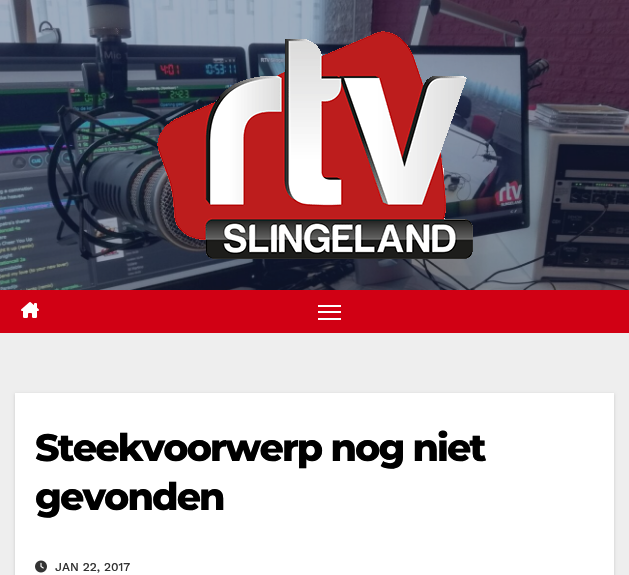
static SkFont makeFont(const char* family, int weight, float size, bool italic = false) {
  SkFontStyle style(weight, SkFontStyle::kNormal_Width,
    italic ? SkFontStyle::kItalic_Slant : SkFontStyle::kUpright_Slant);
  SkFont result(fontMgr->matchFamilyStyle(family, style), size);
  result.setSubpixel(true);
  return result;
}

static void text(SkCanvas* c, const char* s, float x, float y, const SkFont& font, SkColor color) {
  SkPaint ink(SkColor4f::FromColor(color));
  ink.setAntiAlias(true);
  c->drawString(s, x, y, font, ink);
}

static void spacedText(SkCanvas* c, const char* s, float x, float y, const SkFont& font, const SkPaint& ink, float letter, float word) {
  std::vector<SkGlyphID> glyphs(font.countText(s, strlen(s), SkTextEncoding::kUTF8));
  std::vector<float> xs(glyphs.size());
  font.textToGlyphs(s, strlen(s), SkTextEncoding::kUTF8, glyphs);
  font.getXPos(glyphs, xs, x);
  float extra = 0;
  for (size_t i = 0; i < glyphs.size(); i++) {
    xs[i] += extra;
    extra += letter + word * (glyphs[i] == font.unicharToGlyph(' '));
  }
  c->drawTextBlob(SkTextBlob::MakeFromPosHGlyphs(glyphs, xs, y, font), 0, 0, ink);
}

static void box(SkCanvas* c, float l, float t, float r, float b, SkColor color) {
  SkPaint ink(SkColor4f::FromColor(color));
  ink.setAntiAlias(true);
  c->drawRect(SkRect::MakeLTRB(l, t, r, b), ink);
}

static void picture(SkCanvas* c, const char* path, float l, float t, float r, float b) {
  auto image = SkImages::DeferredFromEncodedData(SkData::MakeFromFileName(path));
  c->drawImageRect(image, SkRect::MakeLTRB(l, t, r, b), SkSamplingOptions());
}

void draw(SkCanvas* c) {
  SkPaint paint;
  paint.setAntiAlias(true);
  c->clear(0xffeeeeee);
  picture(c, "img_01.png", 0, 0, 629, 290);
  picture(c, "img_02.png", 157, 31, 473, 259);
  box(c, 0, 290, 629, 333, 0xffd10014);
  picture(c, "img_03.png", 21, 302, 39, 318);
  box(c, 318, 305, 341, 307, 0xffffffff);
  box(c, 318, 311, 341, 313, 0xffffffff);
  box(c, 318, 318, 341, 320, 0xffffffff);
  paint.setColor(0x26000000);
  paint.setMaskFilter(SkMaskFilter::MakeBlur(kNormal_SkBlurStyle, 1.5f));
  c->drawRect(SkRect::MakeLTRB(15, 394, 614, 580), paint);
  paint.setMaskFilter(nullptr);
  box(c, 15, 393, 614, 575, 0xffffffff);
  SkFont face1 = makeFont("Montserrat", 800, 38);
  paint.setColor(0xff000000);
  spacedText(c, "Steekvoorwerp nog niet", 35, 461, face1, paint, -1.9f, 0);
  spacedText(c, "gevonden", 35, 510, face1, paint, -1.9f, 0);
  picture(c, "img_04.png", 35, 560, 47, 573);
  SkFont face2 = makeFont("Work Sans", 500, 12);
  text(c, "JAN 22, 2017", 55, 571, face2, 0xff333333);
}
